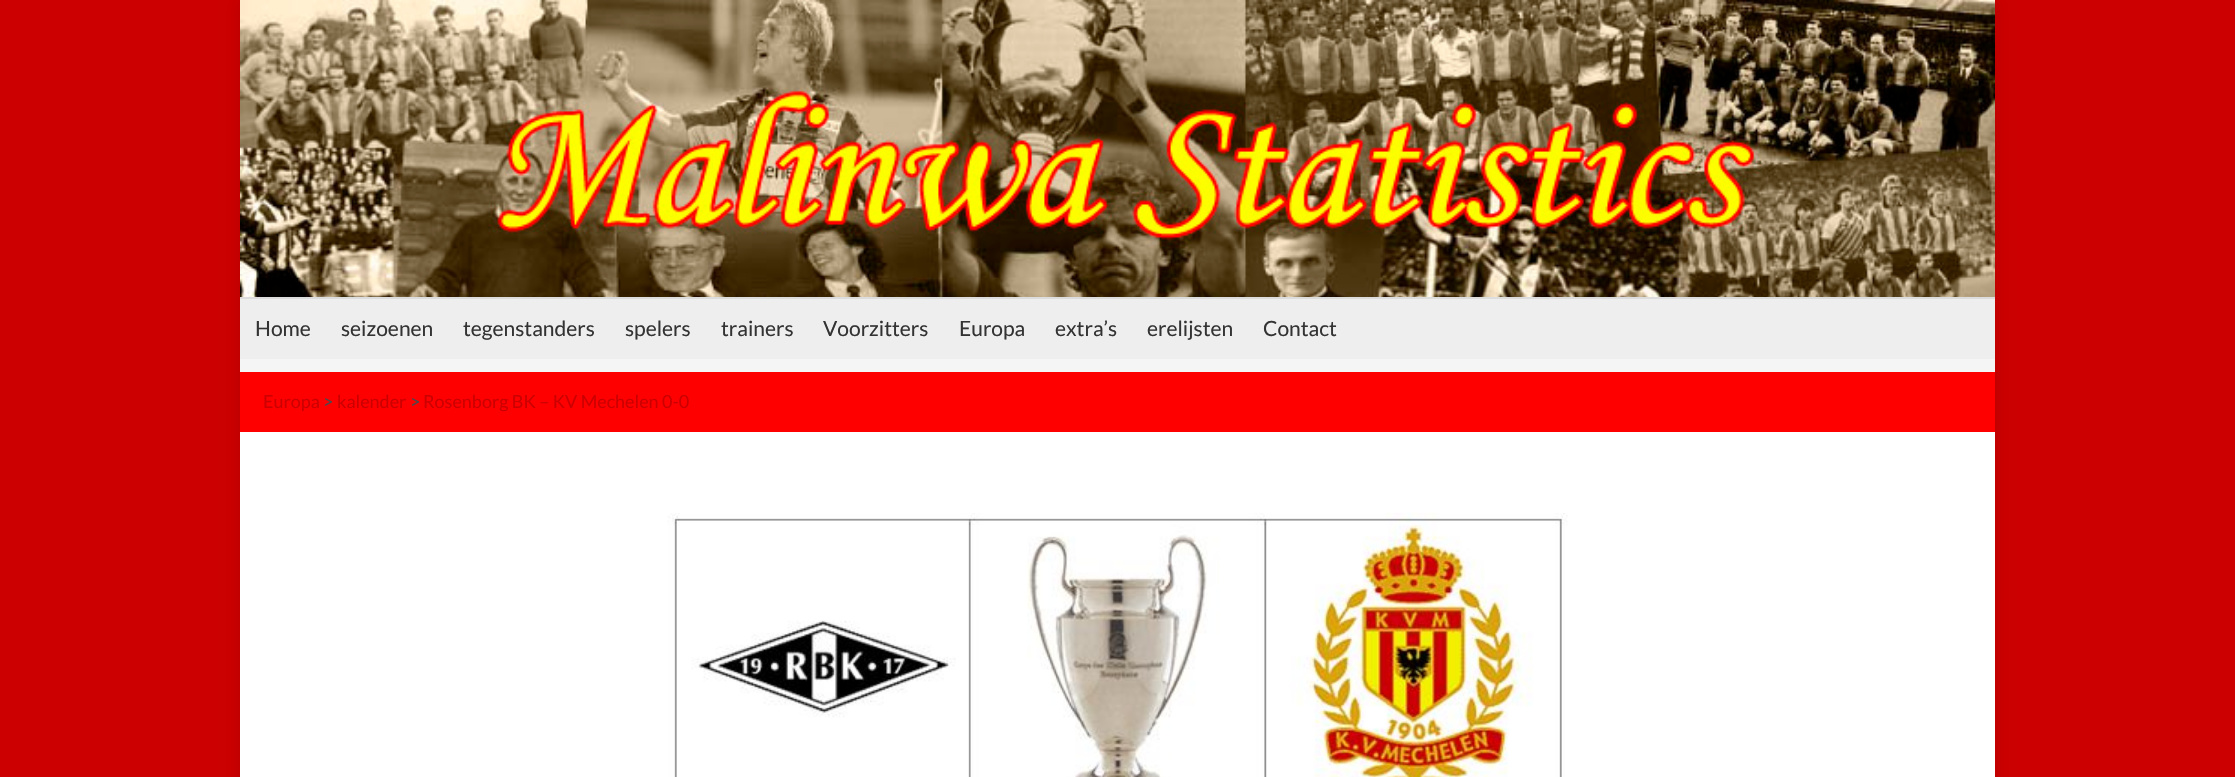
static SkFont makeFont(const char* family, int weight, float size, bool italic = false) {
  SkFontStyle style(weight, SkFontStyle::kNormal_Width,
    italic ? SkFontStyle::kItalic_Slant : SkFontStyle::kUpright_Slant);
  SkFont result(fontMgr->matchFamilyStyle(family, style), size);
  result.setSubpixel(true);
  return result;
}

static void text(SkCanvas* c, const char* s, float x, float y, const SkFont& font, SkColor color) {
  SkPaint ink(SkColor4f::FromColor(color));
  ink.setAntiAlias(true);
  c->drawString(s, x, y, font, ink);
}

static void box(SkCanvas* c, float l, float t, float r, float b, SkColor color) {
  SkPaint ink(SkColor4f::FromColor(color));
  ink.setAntiAlias(true);
  c->drawRect(SkRect::MakeLTRB(l, t, r, b), ink);
}

static void picture(SkCanvas* c, const char* path, float l, float t, float r, float b) {
  auto image = SkImages::DeferredFromEncodedData(SkData::MakeFromFileName(path));
  c->drawImageRect(image, SkRect::MakeLTRB(l, t, r, b), SkSamplingOptions());
}

void draw(SkCanvas* c) {
  SkPaint paint;
  paint.setAntiAlias(true);
  c->clear(0xffcc0000);
  paint.setColor(0x1a000000);
  paint.setMaskFilter(SkMaskFilter::MakeBlur(kNormal_SkBlurStyle, 7.5f));
  c->drawRect(SkRect::MakeLTRB(240, 0, 1995, 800), paint);
  paint.setMaskFilter(nullptr);
  picture(c, "img_01.png", 240, 0, 1995, 297);
  box(c, 240, 359, 1995, 372, 0xfff5f5f5);
  box(c, 240, 299, 1995, 359, 0xffeeeeee);
  box(c, 240, 297, 1995, 299, 0xffdddddd);
  SkFont face1 = makeFont("Lato", 400, 21);
  text(c, "Home", 255, 336, face1, 0xff333333);
  text(c, "seizoenen", 341, 336, face1, 0xff333333);
  text(c, "tegenstanders", 463, 336, face1, 0xff333333);
  text(c, "spelers", 625, 336, face1, 0xff333333);
  text(c, "trainers", 721, 336, face1, 0xff333333);
  text(c, "Voorzitters", 823, 336, face1, 0xff333333);
  text(c, "Europa", 959, 336, face1, 0xff333333);
  text(c, "extra’s", 1055, 336, face1, 0xff333333);
  text(c, "erelijsten", 1147, 336, face1, 0xff333333);
  text(c, "Contact", 1263, 336, face1, 0xff333333);
  box(c, 240, 372, 1995, 432, 0xffff0000);
  SkFont face2 = makeFont("Lato", 400, 18);
  text(c, "Europa", 263, 408, face2, 0xffcc0000);
  text(c, ">", 323, 408, face2, 0xff4a474b);
  text(c, "kalender", 337, 408, face2, 0xffcc0000);
  text(c, ">", 410, 408, face2, 0xff4a474b);
  text(c, "Rosenborg BK – KV Mechelen 0-0", 423, 408, face2, 0xffcc0000);
  box(c, 240, 432, 1995, 777, 0xffffffff);
  picture(c, "img_02.png", 667, 513, 1568, 777);
}
